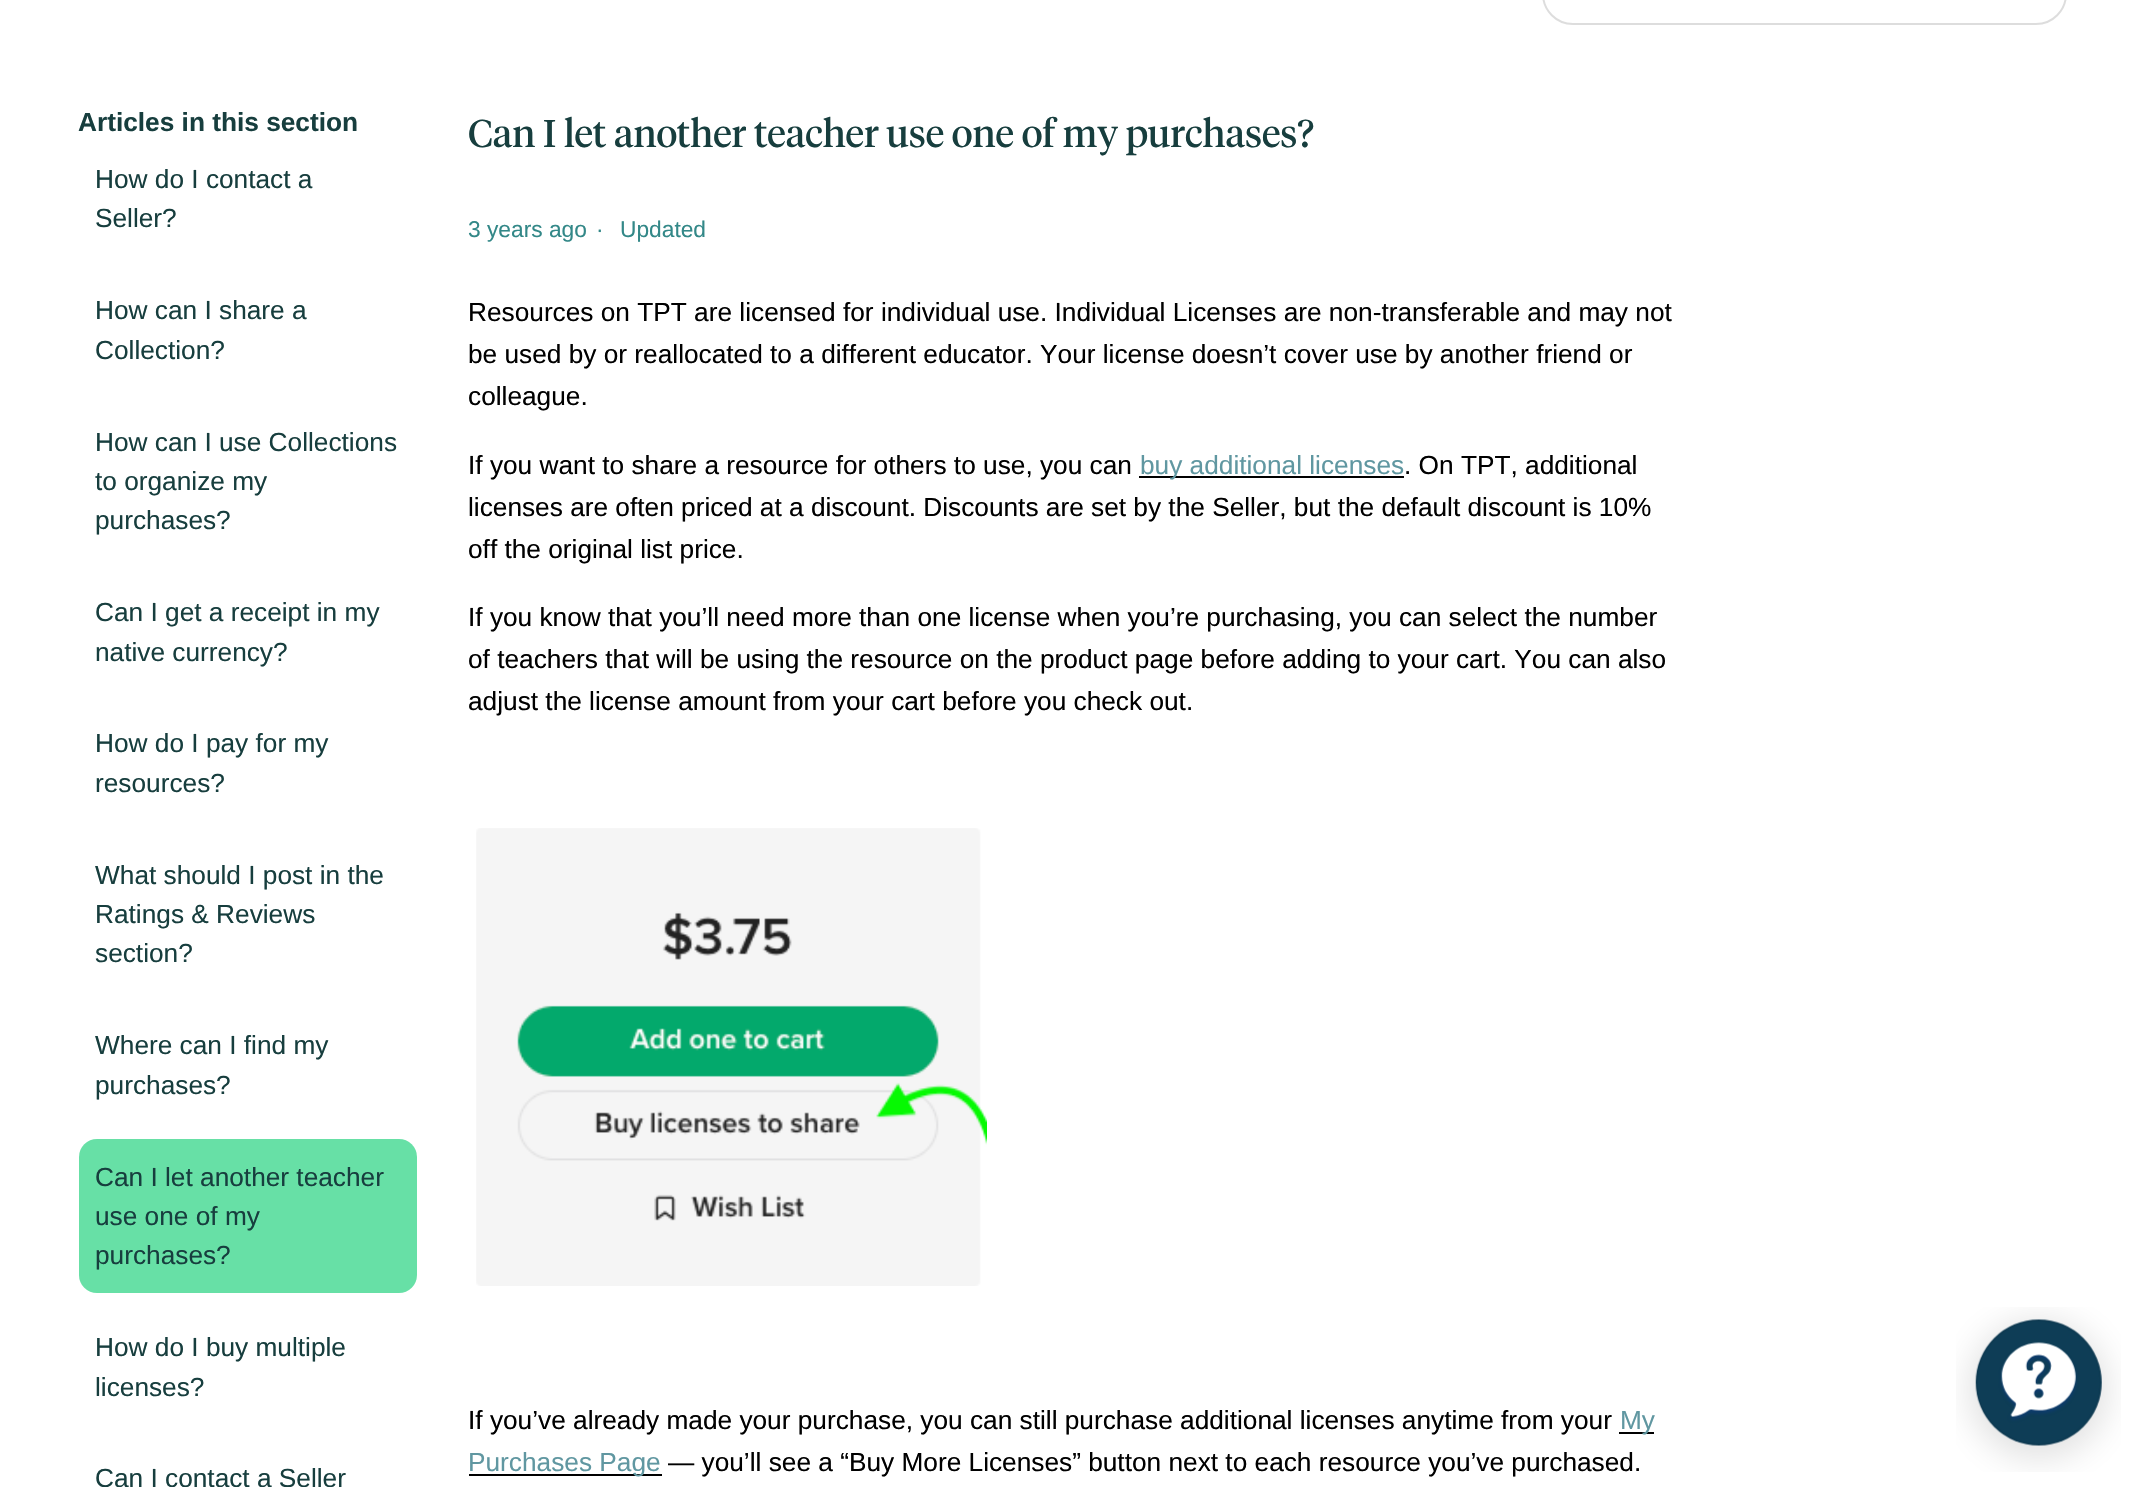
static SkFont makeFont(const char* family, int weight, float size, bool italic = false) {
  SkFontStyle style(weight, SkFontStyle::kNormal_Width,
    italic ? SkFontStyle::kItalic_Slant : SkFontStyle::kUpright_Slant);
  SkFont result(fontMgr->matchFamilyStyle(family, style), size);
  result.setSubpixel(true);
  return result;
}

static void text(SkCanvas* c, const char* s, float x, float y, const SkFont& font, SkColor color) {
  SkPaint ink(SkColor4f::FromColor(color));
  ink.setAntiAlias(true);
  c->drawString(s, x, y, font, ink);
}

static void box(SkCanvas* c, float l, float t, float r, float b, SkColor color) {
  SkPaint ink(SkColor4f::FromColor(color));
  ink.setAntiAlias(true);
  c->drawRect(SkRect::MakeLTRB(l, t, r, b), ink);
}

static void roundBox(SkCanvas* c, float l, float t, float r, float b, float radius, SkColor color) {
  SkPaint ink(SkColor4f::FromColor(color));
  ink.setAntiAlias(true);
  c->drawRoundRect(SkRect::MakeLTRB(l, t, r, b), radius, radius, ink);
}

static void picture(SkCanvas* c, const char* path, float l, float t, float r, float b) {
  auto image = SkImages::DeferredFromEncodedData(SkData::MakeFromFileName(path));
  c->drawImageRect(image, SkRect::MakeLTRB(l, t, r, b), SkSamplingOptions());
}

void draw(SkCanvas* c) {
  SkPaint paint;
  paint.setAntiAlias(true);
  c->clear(0xffffffff);
  paint.setStyle(SkPaint::kStroke_Style);
  paint.setStrokeWidth(2);
  paint.setColor(0xffdddddd);
  c->drawRoundRect(SkRect::MakeLTRB(1543, -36, 2066, 24), 34, 34, paint);
  SkFont face1 = makeFont("Liberation Sans", 700, 26.25f);
  text(c, "Articles in this section", 78, 131, face1, 0xff173e3e);
  SkFont face2 = makeFont("Liberation Sans", 400, 26.25f);
  text(c, "How do I contact a", 95, 188, face2, 0xff173e3e);
  text(c, "Seller?", 95, 227, face2, 0xff173e3e);
  text(c, "How can I share a", 95, 319, face2, 0xff173e3e);
  text(c, "Collection?", 95, 359, face2, 0xff173e3e);
  text(c, "How can I use Collections", 95, 451, face2, 0xff173e3e);
  text(c, "to organize my", 95, 490, face2, 0xff173e3e);
  text(c, "purchases?", 95, 529, face2, 0xff173e3e);
  text(c, "Can I get a receipt in my", 95, 621, face2, 0xff173e3e);
  text(c, "native currency?", 95, 661, face2, 0xff173e3e);
  text(c, "How do I pay for my", 95, 752, face2, 0xff173e3e);
  text(c, "resources?", 95, 792, face2, 0xff173e3e);
  text(c, "What should I post in the", 95, 884, face2, 0xff173e3e);
  text(c, "Ratings & Reviews", 95, 923, face2, 0xff173e3e);
  text(c, "section?", 95, 962, face2, 0xff173e3e);
  text(c, "Where can I find my", 95, 1054, face2, 0xff173e3e);
  text(c, "purchases?", 95, 1094, face2, 0xff173e3e);
  roundBox(c, 79, 1139, 417, 1293, 18, 0xff67e0a6);
  text(c, "Can I let another teacher", 95, 1186, face2, 0xff173e3e);
  text(c, "use one of my", 95, 1225, face2, 0xff173e3e);
  text(c, "purchases?", 95, 1264, face2, 0xff173e3e);
  text(c, "How do I buy multiple", 95, 1356, face2, 0xff173e3e);
  text(c, "licenses?", 95, 1396, face2, 0xff173e3e);
  text(c, "Can I contact a Seller", 95, 1487, face2, 0xff173e3e);
  SkFont face3 = makeFont("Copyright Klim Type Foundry", 400, 38.5f);
  text(c, "Can I let another teacher use one of my purchases?", 468, 147, face3, 0xff173e3e);
  SkFont face4 = makeFont("Liberation Sans", 400, 22.75f);
  text(c, "3 years ago", 468, 237, face4, 0xff338888);
  text(c, "·", 596, 237, face4, 0xff338888);
  text(c, "Updated", 620, 237, face4, 0xff338888);
  text(c, "Resources on TPT are licensed for individual use. Individual Licenses are non-transferable and may not", 468, 321, face2, 0xff000000);
  text(c, "be used by or reallocated to a different educator. Your license doesn’t cover use by another friend or", 468, 363, face2, 0xff000000);
  text(c, "colleague.", 468, 405, face2, 0xff000000);
  text(c, "If you want to share a resource for others to use, you can", 468, 474, face2, 0xff000000);
  box(c, 1139, 476, 1404, 478, 0xff000000);
  text(c, "buy additional licenses", 1140, 474, face2, 0xff6097a1);
  text(c, ". On TPT, additional", 1404, 474, face2, 0xff000000);
  text(c, "licenses are often priced at a discount. Discounts are set by the Seller, but the default discount is 10%", 468, 516, face2, 0xff000000);
  text(c, "off the original list price.", 468, 558, face2, 0xff000000);
  text(c, "If you know that you’ll need more than one license when you’re purchasing, you can select the number", 468, 626, face2, 0xff000000);
  text(c, "of teachers that will be using the resource on the product page before adding to your cart. You can also", 468, 668, face2, 0xff000000);
  text(c, "adjust the license amount from your cart before you check out.", 468, 710, face2, 0xff000000);
  picture(c, "img_01.png", 476, 828, 987, 1286);
  text(c, "If you’ve already made your purchase, you can still purchase additional licenses anytime from your", 468, 1429, face2, 0xff000000);
  box(c, 1619, 1432, 1654, 1434, 0xff000000);
  text(c, "My", 1620, 1429, face2, 0xff6097a1);
  box(c, 469, 1474, 662, 1476, 0xff000000);
  text(c, "Purchases Page", 468, 1471, face2, 0xff6097a1);
  text(c, "— you’ll see a “Buy More Licenses” button next to each resource you’ve purchased.", 668, 1471, face2, 0xff000000);
  picture(c, "img_02.png", 1956, 1307, 2121, 1472);
}
